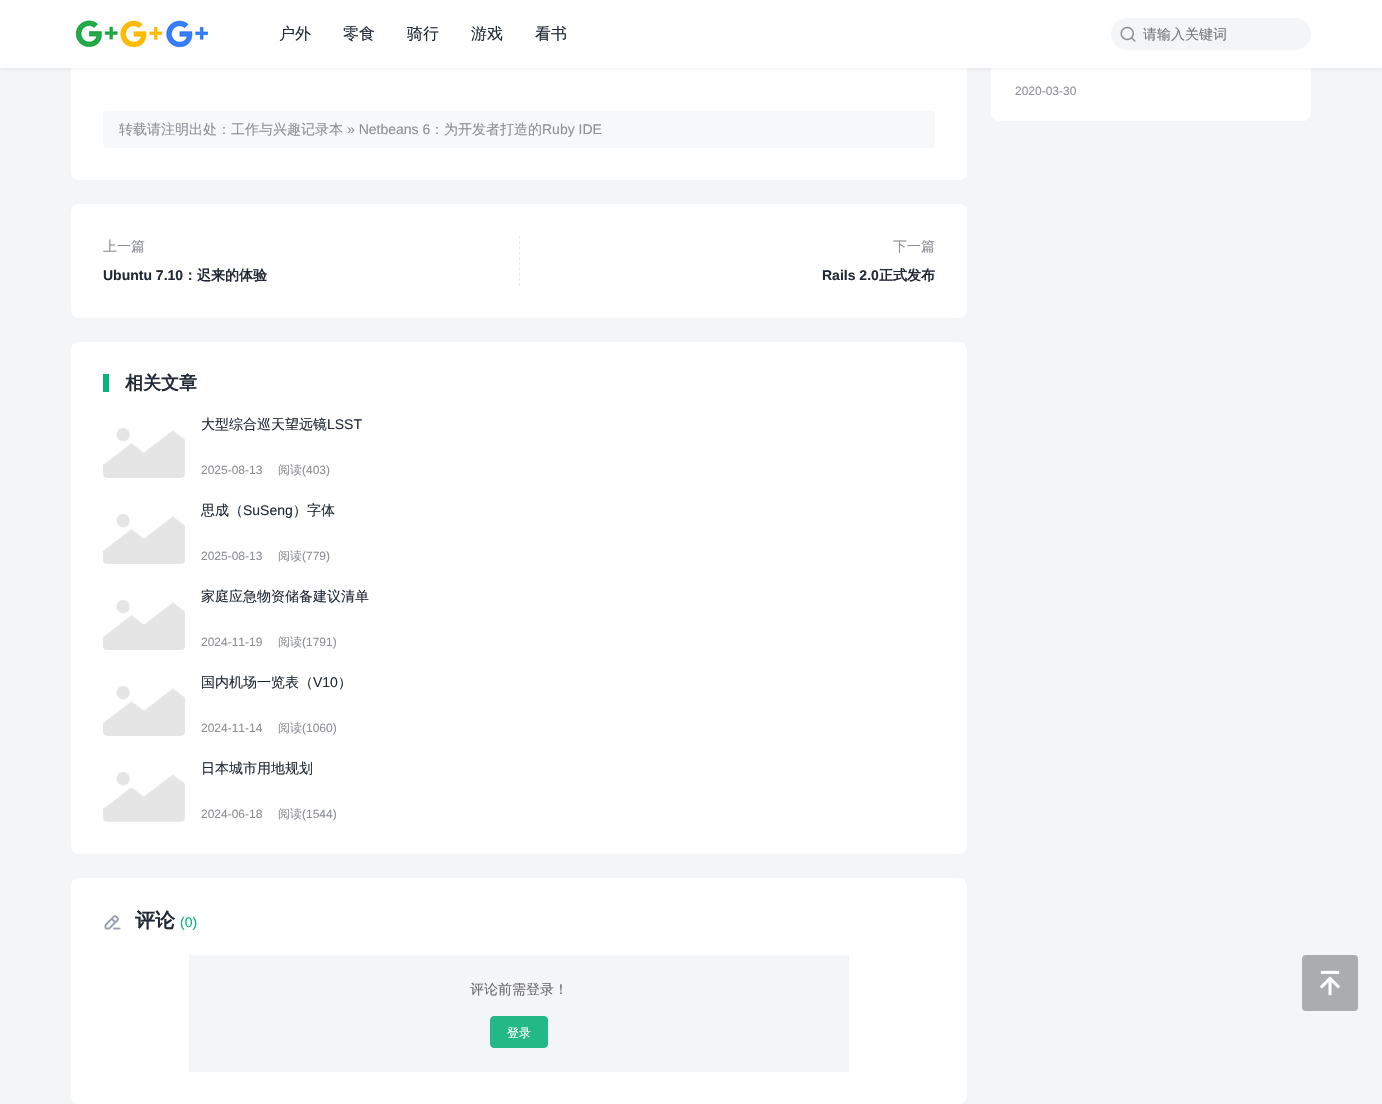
static SkFont makeFont(const char* family, int weight, float size, bool italic = false) {
  SkFontStyle style(weight, SkFontStyle::kNormal_Width,
    italic ? SkFontStyle::kItalic_Slant : SkFontStyle::kUpright_Slant);
  SkFont result(fontMgr->matchFamilyStyle(family, style), size);
  result.setSubpixel(true);
  return result;
}

static void text(SkCanvas* c, const char* s, float x, float y, const SkFont& font, SkColor color) {
  SkPaint ink(SkColor4f::FromColor(color));
  ink.setAntiAlias(true);
  c->drawString(s, x, y, font, ink);
}

static void box(SkCanvas* c, float l, float t, float r, float b, SkColor color) {
  SkPaint ink(SkColor4f::FromColor(color));
  ink.setAntiAlias(true);
  c->drawRect(SkRect::MakeLTRB(l, t, r, b), ink);
}

static void roundBox(SkCanvas* c, float l, float t, float r, float b, float radius, SkColor color) {
  SkPaint ink(SkColor4f::FromColor(color));
  ink.setAntiAlias(true);
  c->drawRoundRect(SkRect::MakeLTRB(l, t, r, b), radius, radius, ink);
}

static void picture(SkCanvas* c, const char* path, float l, float t, float r, float b) {
  auto image = SkImages::DeferredFromEncodedData(SkData::MakeFromFileName(path));
  c->drawImageRect(image, SkRect::MakeLTRB(l, t, r, b), SkSamplingOptions());
}

void draw(SkCanvas* c) {
  SkPaint paint;
  paint.setAntiAlias(true);
  c->clear(0xfff3f5f7);
  roundBox(c, 991, -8, 1311, 121, 8, 0xffffffff);
  roundBox(c, 71, -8, 967, 180, 8, 0xffffffff);
  paint.setColor(0x1a000000);
  paint.setMaskFilter(SkMaskFilter::MakeBlur(kNormal_SkBlurStyle, 2));
  c->drawRect(SkRect::MakeLTRB(0, 0, 1382, 68), paint);
  paint.setMaskFilter(nullptr);
  box(c, 0, 0, 1382, 68, 0xffffffff);
  picture(c, "img_01.png", 74, 18, 209, 49);
  SkFont face1 = makeFont("WenQuanYi Zen Hei", 500, 16);
  text(c, "户外", 279, 39, face1, 0xff202935);
  text(c, "零食", 343, 39, face1, 0xff202935);
  text(c, "骑行", 407, 39, face1, 0xff202935);
  text(c, "游戏", 471, 39, face1, 0xff202935);
  text(c, "看书", 535, 39, face1, 0xff202935);
  roundBox(c, 1111, 18, 1311, 50, 16, 0xfff3f5f7);
  picture(c, "img_02.png", 1120, 26, 1136, 42);
  SkFont face2 = makeFont("WenQuanYi Zen Hei", 500, 14);
  text(c, "请输入关键词", 1143, 39, face2, 0xff757575);
  SkFont face3 = makeFont("Liberation Sans", 400, 12);
  text(c, "2020-03-30", 1015, 95, face3, 0xff8d8f96);
  roundBox(c, 103, 111, 935, 148, 4, 0xfff7f8f9);
  text(c, "转载请注明出处：工作与兴趣记录本", 119, 134, face2, 0xff8d8f96);
  SkFont face4 = makeFont("Liberation Sans", 400, 14);
  text(c, "» Netbeans 6", 347, 134, face4, 0xff8d8f96);
  text(c, "：为开发者打造的", 430, 134, face2, 0xff8d8f96);
  text(c, "Ruby IDE", 542, 134, face4, 0xff8d8f96);
  roundBox(c, 71, 204, 967, 318, 8, 0xffffffff);
  text(c, "上一篇", 103, 251, face2, 0xff8d8f96);
  SkFont face5 = makeFont("Liberation Sans", 700, 14);
  text(c, "Ubuntu 7.10", 103, 280, face5, 0xff202935);
  SkFont face6 = makeFont("WenQuanYi Zen Hei", 700, 14);
  text(c, "：迟来的体验", 183, 280, face6, 0xff202935);
  paint.setStyle(SkPaint::kStroke_Style);
  paint.setStrokeWidth(1);
  paint.setColor(0xffeaeaea);
  paint.setPathEffect(SkDashPathEffect::Make({{3, 2.22f}}, 0));
  c->drawPath(SkPathBuilder().moveTo(519.5f, 236).lineTo(519.5f, 286).detach(), paint);
  paint.setPathEffect(nullptr);
  text(c, "下一篇", 893, 251, face2, 0xff8d8f96);
  text(c, "Rails 2.0", 822, 280, face5, 0xff202935);
  text(c, "正式发布", 879, 280, face6, 0xff202935);
  roundBox(c, 71, 342, 967, 854, 8, 0xffffffff);
  box(c, 103, 374, 109, 392, 0xff0bb27a);
  SkFont face7 = makeFont("WenQuanYi Zen Hei", 700, 18);
  text(c, "相关文章", 125, 389, face7, 0xff202935);
  picture(c, "img_03.png", 103, 427, 185, 478);
  text(c, "大型综合巡天望远镜", 201, 429, face2, 0xff202935);
  text(c, "LSST", 327, 429, face4, 0xff202935);
  text(c, "2025-08-13", 201, 474, face3, 0xff8d8f96);
  SkFont face8 = makeFont("WenQuanYi Zen Hei", 500, 12);
  text(c, "阅读", 278, 474, face8, 0xff8d8f96);
  text(c, "(403)", 302, 474, face3, 0xff8d8f96);
  picture(c, "img_03.png", 103, 513, 185, 564);
  text(c, "思成（", 201, 515, face2, 0xff202935);
  text(c, "SuSeng", 243, 515, face4, 0xff202935);
  text(c, "）字体", 293, 515, face2, 0xff202935);
  text(c, "2025-08-13", 201, 560, face3, 0xff8d8f96);
  text(c, "阅读", 278, 560, face8, 0xff8d8f96);
  text(c, "(779)", 302, 560, face3, 0xff8d8f96);
  picture(c, "img_03.png", 103, 599, 185, 650);
  text(c, "家庭应急物资储备建议清单", 201, 601, face2, 0xff202935);
  text(c, "2024-11-19", 201, 646, face3, 0xff8d8f96);
  text(c, "阅读", 278, 646, face8, 0xff8d8f96);
  text(c, "(1791)", 302, 646, face3, 0xff8d8f96);
  picture(c, "img_03.png", 103, 685, 185, 736);
  text(c, "国内机场一览表（", 201, 687, face2, 0xff202935);
  text(c, "V10", 313, 687, face4, 0xff202935);
  text(c, "）", 338, 687, face2, 0xff202935);
  text(c, "2024-11-14", 201, 732, face3, 0xff8d8f96);
  text(c, "阅读", 278, 732, face8, 0xff8d8f96);
  text(c, "(1060)", 302, 732, face3, 0xff8d8f96);
  picture(c, "img_04.png", 103, 772, 185, 822);
  text(c, "日本城市用地规划", 201, 773, face2, 0xff202935);
  text(c, "2024-06-18", 201, 818, face3, 0xff8d8f96);
  text(c, "阅读", 278, 818, face8, 0xff8d8f96);
  text(c, "(1544)", 302, 818, face3, 0xff8d8f96);
  roundBox(c, 71, 878, 967, 1104, 8, 0xffffffff);
  picture(c, "img_05.png", 104, 915, 121, 930);
  SkFont face9 = makeFont("WenQuanYi Zen Hei", 700, 20);
  text(c, "评论", 135, 927, face9, 0xff202935);
  text(c, "(0)", 180, 927, face4, 0xff0bb27a);
  box(c, 189, 955, 849, 1072, 0xfff3f5f7);
  text(c, "评论前需登录！", 470, 994, face2, 0xff6b6970);
  paint.setStyle(SkPaint::kFill_Style);
  paint.setColor(0xff22b987);
  c->drawRoundRect(SkRect::MakeLTRB(490.5f, 1016.5f, 547.5f, 1047.5f), 3.5f, 3.5f, paint);
  paint.setStyle(SkPaint::kStroke_Style);
  c->drawRoundRect(SkRect::MakeLTRB(490.5f, 1016.5f, 547.5f, 1047.5f), 3.5f, 3.5f, paint);
  text(c, "登录", 507, 1037, face8, 0xfffefefe);
  roundBox(c, 1302, 955, 1358, 1011, 4, 0xffaaacad);
  picture(c, "img_06.png", 1320, 970, 1340, 996);
}
